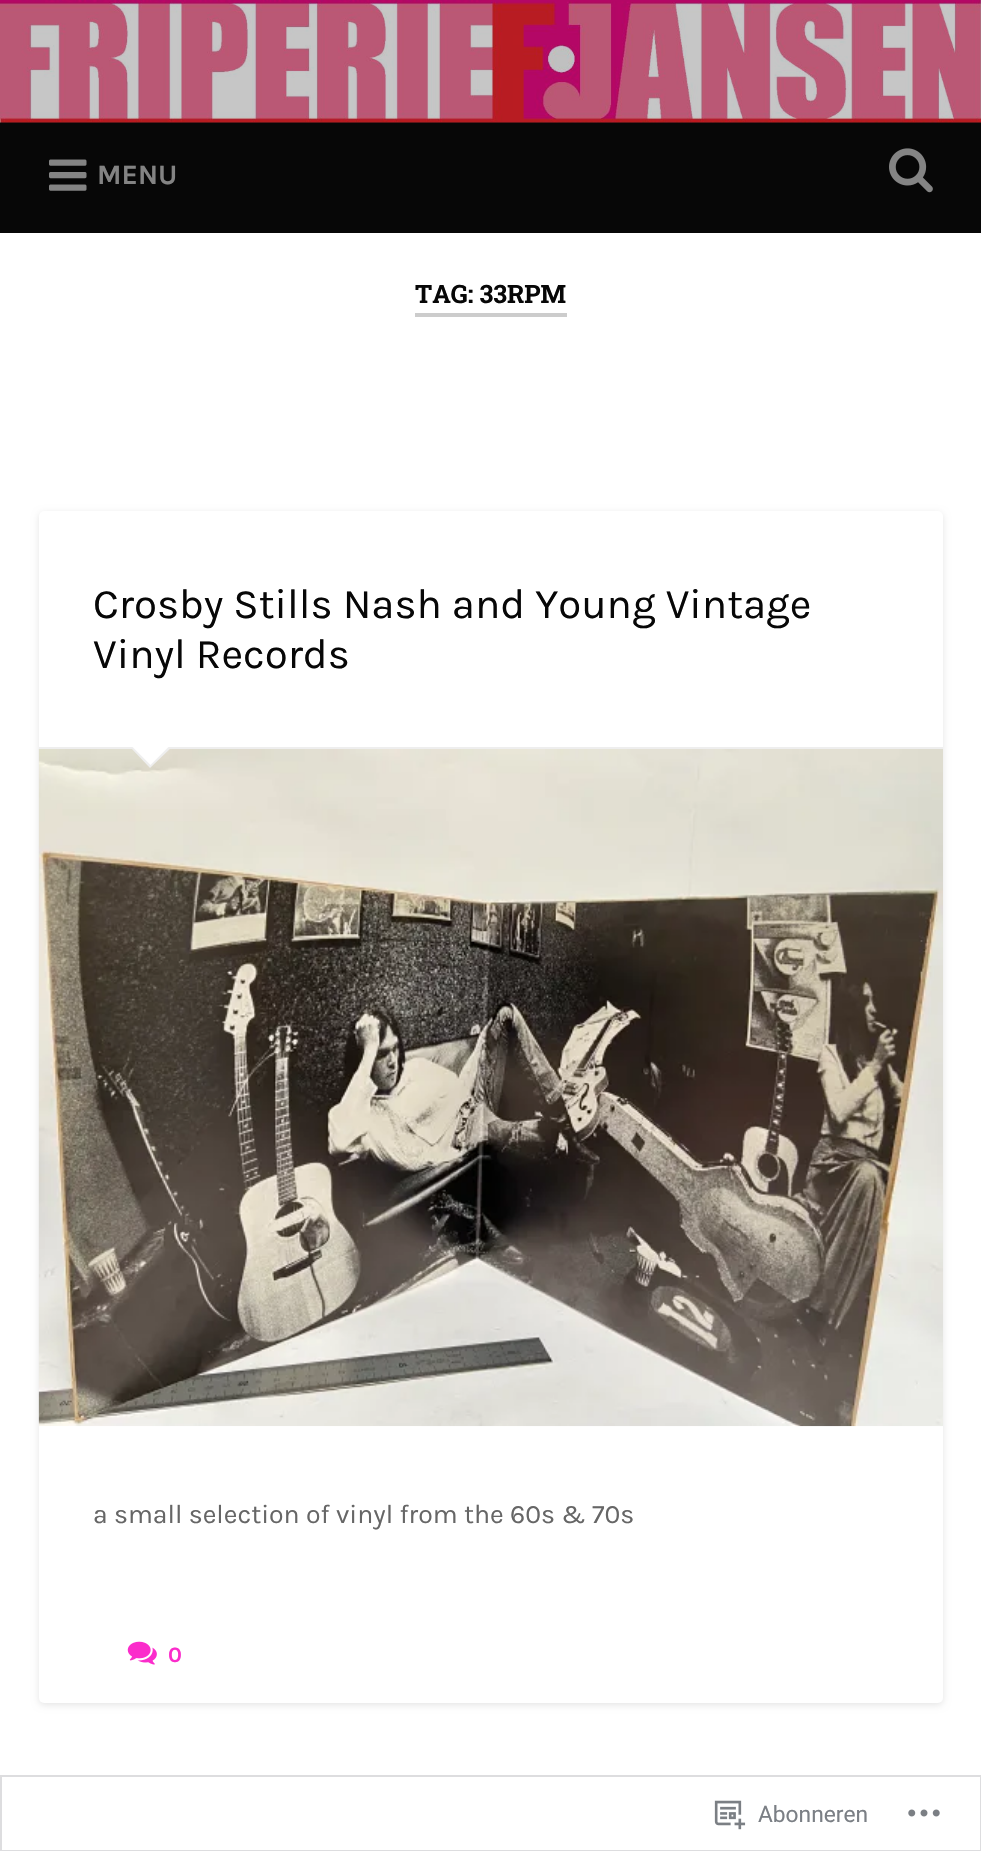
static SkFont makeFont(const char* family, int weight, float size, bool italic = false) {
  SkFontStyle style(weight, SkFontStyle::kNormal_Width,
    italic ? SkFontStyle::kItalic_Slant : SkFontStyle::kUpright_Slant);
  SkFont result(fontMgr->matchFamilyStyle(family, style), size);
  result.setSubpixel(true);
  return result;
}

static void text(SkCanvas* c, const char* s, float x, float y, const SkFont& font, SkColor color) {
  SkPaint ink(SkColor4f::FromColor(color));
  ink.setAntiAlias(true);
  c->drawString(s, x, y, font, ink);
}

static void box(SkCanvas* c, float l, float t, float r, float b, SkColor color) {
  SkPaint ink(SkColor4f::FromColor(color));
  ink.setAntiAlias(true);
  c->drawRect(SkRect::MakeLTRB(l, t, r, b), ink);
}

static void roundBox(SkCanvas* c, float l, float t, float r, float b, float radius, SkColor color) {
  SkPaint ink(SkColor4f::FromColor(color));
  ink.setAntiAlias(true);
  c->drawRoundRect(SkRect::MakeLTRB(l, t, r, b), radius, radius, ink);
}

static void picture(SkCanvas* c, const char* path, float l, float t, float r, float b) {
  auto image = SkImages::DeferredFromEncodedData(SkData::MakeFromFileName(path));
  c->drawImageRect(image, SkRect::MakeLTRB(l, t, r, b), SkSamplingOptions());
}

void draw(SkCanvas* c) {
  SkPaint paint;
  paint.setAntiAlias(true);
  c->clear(0xffffffff);
  box(c, 0, 122, 981, 123, 0xff0d0d0d);
  picture(c, "img_01.png", 0, 0, 981, 123);
  box(c, 0, 123, 981, 233, 0xff070707);
  picture(c, "img_02.png", 49, 159, 87, 191);
  SkFont face1 = makeFont("Karla", 700, 28);
  text(c, "MENU", 97, 184, face1, 0xff838383);
  picture(c, "img_03.png", 889, 148, 933, 193);
  box(c, 415, 313, 567, 317, 0xffcccccc);
  SkFont face2 = makeFont("Roboto Slab", 700, 25.25f);
  text(c, "TAG: 33RPM", 415, 303, face2, 0xff070707);
  paint.setColor(0x1a000000);
  paint.setMaskFilter(SkMaskFilter::MakeBlur(kNormal_SkBlurStyle, 3.5f));
  c->drawRoundRect(SkRect::MakeLTRB(39, 513, 943, 1705), 5, 5, paint);
  paint.setMaskFilter(nullptr);
  roundBox(c, 39, 511, 943, 1703, 5, 0xffffffff);
  box(c, 39, 747, 943, 749, 0xffeeeeee);
  SkFont face3 = makeFont("Karla", 400, 42);
  text(c, "Crosby Stills Nash and Young Vintage", 93, 618, face3, 0xff070707);
  text(c, "Vinyl Records", 93, 668, face3, 0xff070707);
  picture(c, "img_04.png", 38, 749, 943, 1427);
  paint.setColor(0xffeeeeee);
  c->drawPath(SkPathBuilder().moveTo(130, 747).lineTo(172, 747).lineTo(150, 768).close().detach(), paint);
  paint.setColor(0xffffffff);
  c->drawPath(SkPathBuilder().moveTo(131, 745.5f).lineTo(170, 745.5f).lineTo(150.5f, 765).close().detach(), paint);
  SkFont face4 = makeFont("Karla", 400, 26.6f);
  text(c, "a small selection of vinyl from the 60s & 70s", 93, 1523, face4, 0xff666666);
  picture(c, "img_05.png", 127, 1641, 157, 1665);
  SkFont face5 = makeFont("Karla", 700, 22);
  text(c, "0", 168, 1662, face5, 0xfffb2ccb);
  paint.setStyle(SkPaint::kStroke_Style);
  paint.setStrokeWidth(2);
  paint.setColor(0xffdddddf);
  c->drawRect(SkRect::MakeLTRB(1, 1776, 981, 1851), paint);
  picture(c, "img_06.png", 714, 1800, 746, 1830);
  SkFont face6 = makeFont("Roboto", 400, 22.75f);
  text(c, "Abonneren", 758, 1822, face6, 0xff7b7f85);
  picture(c, "img_07.png", 908, 1809, 940, 1817);
}
